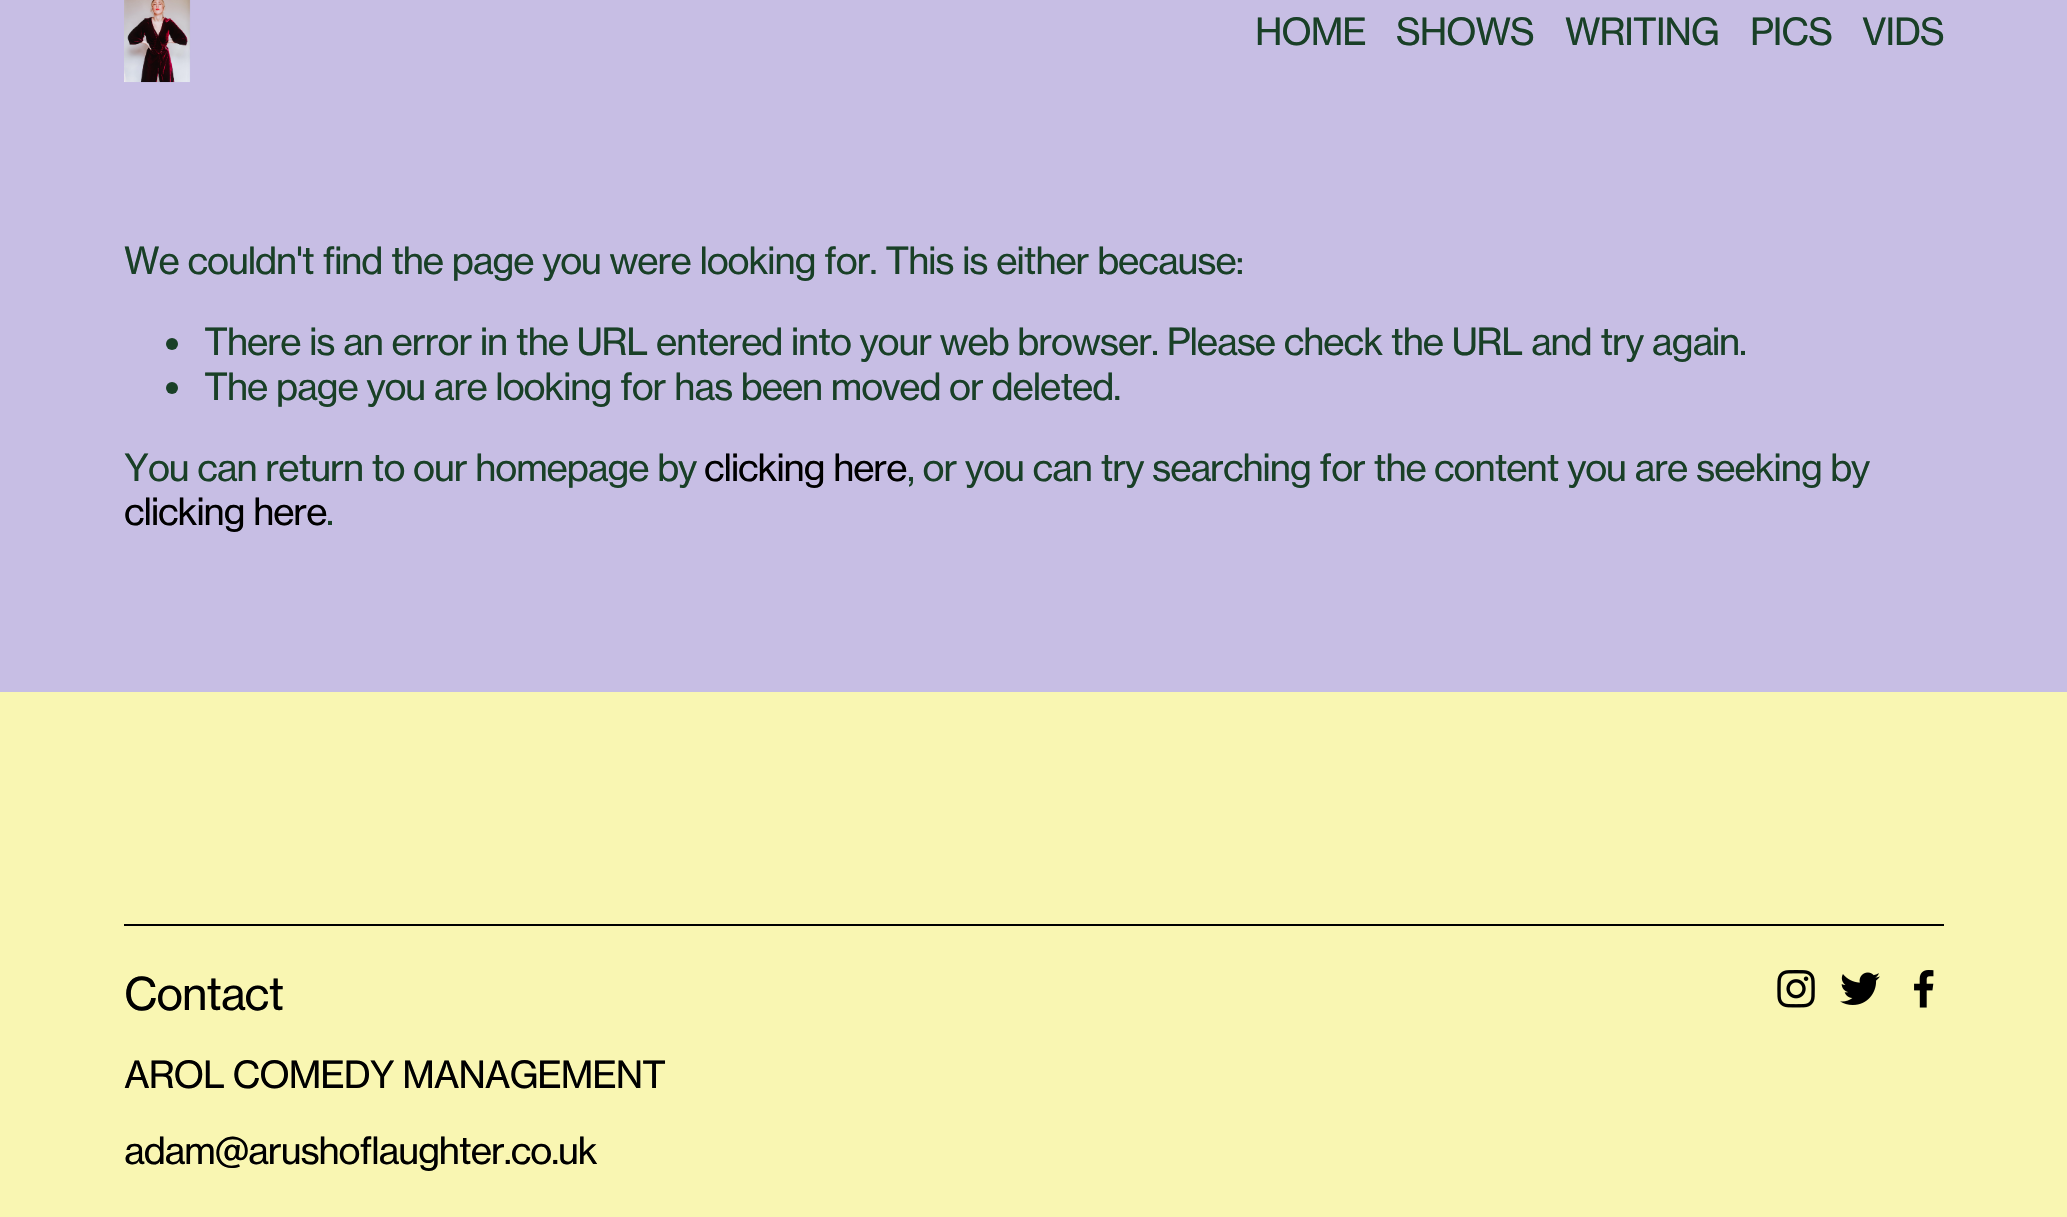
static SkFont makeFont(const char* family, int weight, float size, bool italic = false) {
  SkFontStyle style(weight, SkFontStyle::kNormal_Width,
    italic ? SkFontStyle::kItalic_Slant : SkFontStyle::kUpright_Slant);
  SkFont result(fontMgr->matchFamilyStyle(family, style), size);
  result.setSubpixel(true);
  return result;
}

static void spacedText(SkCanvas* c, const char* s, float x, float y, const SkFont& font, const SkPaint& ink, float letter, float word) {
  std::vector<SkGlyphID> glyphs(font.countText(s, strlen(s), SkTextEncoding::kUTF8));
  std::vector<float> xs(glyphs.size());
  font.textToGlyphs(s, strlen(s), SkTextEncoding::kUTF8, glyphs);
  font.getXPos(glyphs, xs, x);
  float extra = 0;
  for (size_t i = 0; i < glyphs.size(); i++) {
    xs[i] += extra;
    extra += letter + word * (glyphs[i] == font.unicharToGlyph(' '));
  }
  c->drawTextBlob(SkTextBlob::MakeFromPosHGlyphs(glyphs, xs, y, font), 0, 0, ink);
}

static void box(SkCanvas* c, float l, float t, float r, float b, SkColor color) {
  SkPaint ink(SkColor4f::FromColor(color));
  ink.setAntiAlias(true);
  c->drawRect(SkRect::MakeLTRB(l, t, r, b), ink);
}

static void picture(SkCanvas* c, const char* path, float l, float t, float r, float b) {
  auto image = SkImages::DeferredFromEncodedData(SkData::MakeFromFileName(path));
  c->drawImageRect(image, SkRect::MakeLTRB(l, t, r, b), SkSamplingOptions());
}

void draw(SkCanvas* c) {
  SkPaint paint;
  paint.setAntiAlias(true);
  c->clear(0xffc7bee4);
  picture(c, "img_01.png", 124, 0, 191, 83);
  SkFont face1 = makeFont("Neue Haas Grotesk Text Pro", 400, 36.95f);
  paint.setColor(0xff194027);
  spacedText(c, "HOME", 1255, 45, face1, paint, -1.1f, 0);
  spacedText(c, "SHOWS", 1396, 45, face1, paint, -1.1f, 0);
  spacedText(c, "WRITING", 1565, 45, face1, paint, -1.1f, 0);
  spacedText(c, "PICS", 1750, 45, face1, paint, -1.1f, 0);
  spacedText(c, "VIDS", 1862, 45, face1, paint, -1.1f, 0);
  spacedText(c, "We couldn't find the page you were looking for. This is either because:", 124, 274, face1, paint, -1.1f, 0);
  c->drawCircle(172, 344, 6, paint);
  spacedText(c, "There is an error in the URL entered into your web browser. Please check the URL and try again.", 204, 355, face1, paint, -1.1f, 0);
  c->drawCircle(172, 388, 6, paint);
  spacedText(c, "The page you are looking for has been moved or deleted.", 204, 400, face1, paint, -1.1f, 0);
  spacedText(c, "You can return to our homepage by", 124, 481, face1, paint, -1.1f, 0);
  paint.setColor(0xff000000);
  spacedText(c, "clicking here", 704, 481, face1, paint, -1.1f, 0);
  paint.setColor(0xff194027);
  spacedText(c, ", or you can try searching for the", 907, 481, face1, paint, -1.1f, 0);
  spacedText(c, "content you are seeking by", 1434, 481, face1, paint, -1.1f, 0);
  paint.setColor(0xff000000);
  spacedText(c, "clicking here", 124, 525, face1, paint, -1.1f, 0);
  paint.setColor(0xff194027);
  spacedText(c, ".", 326, 525, face1, paint, -1.1f, 0);
  box(c, 0, 692, 2067, 1217, 0xfff9f6b2);
  box(c, 124, 924, 1944, 926, 0xff000000);
  SkFont face2 = makeFont("Neue Haas Grotesk Text Pro", 400, 44.5f);
  paint.setColor(0xff000000);
  spacedText(c, "Contact", 124, 1010, face2, paint, -1.1f, 0);
  spacedText(c, "AROL COMEDY MANAGEMENT", 124, 1088, face1, paint, -1.1f, 0);
  spacedText(c, "adam@arushoflaughter.co.uk", 124, 1164, face1, paint, -1.1f, 0);
  picture(c, "img_02.png", 1777, 970, 1815, 1008);
  picture(c, "img_03.png", 1840, 972, 1880, 1005);
  picture(c, "img_04.png", 1914, 970, 1934, 1008);
}
